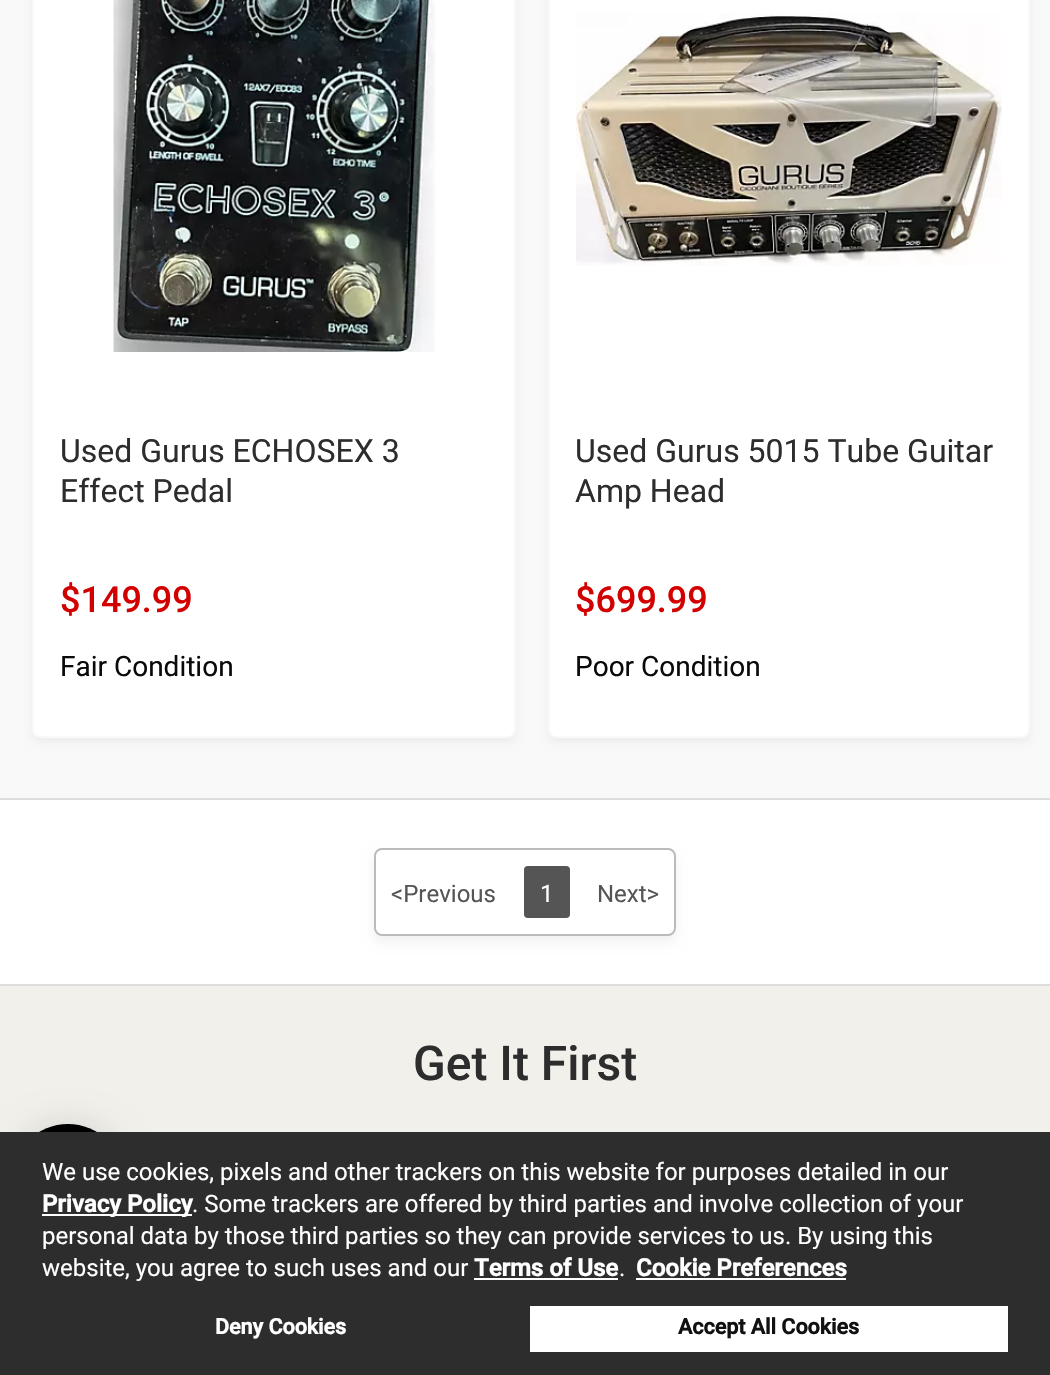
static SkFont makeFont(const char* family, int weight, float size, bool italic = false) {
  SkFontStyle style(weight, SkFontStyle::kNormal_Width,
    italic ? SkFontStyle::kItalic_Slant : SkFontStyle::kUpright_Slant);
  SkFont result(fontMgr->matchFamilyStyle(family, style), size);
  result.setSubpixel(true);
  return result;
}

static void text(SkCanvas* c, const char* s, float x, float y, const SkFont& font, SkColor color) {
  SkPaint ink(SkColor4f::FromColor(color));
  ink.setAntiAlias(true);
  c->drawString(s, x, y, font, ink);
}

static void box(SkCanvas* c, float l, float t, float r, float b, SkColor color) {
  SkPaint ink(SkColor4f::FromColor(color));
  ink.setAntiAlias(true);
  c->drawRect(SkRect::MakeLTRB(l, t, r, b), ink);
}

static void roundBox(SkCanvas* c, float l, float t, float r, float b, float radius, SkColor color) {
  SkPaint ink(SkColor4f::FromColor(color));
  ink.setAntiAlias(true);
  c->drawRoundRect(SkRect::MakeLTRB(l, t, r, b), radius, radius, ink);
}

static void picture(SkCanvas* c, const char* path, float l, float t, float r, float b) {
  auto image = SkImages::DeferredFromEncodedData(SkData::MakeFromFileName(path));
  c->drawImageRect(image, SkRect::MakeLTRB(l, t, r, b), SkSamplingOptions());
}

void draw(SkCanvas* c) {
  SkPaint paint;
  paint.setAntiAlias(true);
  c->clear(0xffffffff);
  box(c, 0, 0, 1050, 798, 0xfff9f9f9);
  paint.setColor(0x0d000000);
  paint.setMaskFilter(SkMaskFilter::MakeBlur(kNormal_SkBlurStyle, 4));
  c->drawRoundRect(SkRect::MakeLTRB(32, -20, 516, 742), 8, 8, paint);
  paint.setMaskFilter(nullptr);
  paint.setColor(0xffffffff);
  c->drawRoundRect(SkRect::MakeLTRB(33, -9, 515, 737), 7, 7, paint);
  paint.setStyle(SkPaint::kStroke_Style);
  paint.setStrokeWidth(2);
  paint.setColor(0xfff9f9f9);
  c->drawRoundRect(SkRect::MakeLTRB(33, -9, 515, 737), 7, 7, paint);
  picture(c, "img_01.png", 113, 0, 436, 352);
  SkFont face1 = makeFont("Roboto", 400, 32);
  text(c, "Used Gurus ECHOSEX 3", 60, 462, face1, 0xff2d2d2d);
  text(c, "Effect Pedal", 60, 502, face1, 0xff2d2d2d);
  SkFont face2 = makeFont("Roboto", 500, 36);
  text(c, "$149.99", 60, 612, face2, 0xffd30000);
  SkFont face3 = makeFont("Roboto", 400, 28);
  text(c, "Fair Condition", 60, 676, face3, 0xff0a0a0a);
  paint.setStyle(SkPaint::kFill_Style);
  paint.setColor(0x0d000000);
  paint.setMaskFilter(SkMaskFilter::MakeBlur(kNormal_SkBlurStyle, 4));
  c->drawRoundRect(SkRect::MakeLTRB(548, -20, 1030, 742), 8, 8, paint);
  paint.setMaskFilter(nullptr);
  paint.setColor(0xffffffff);
  c->drawRoundRect(SkRect::MakeLTRB(549, -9, 1029, 737), 7, 7, paint);
  paint.setStyle(SkPaint::kStroke_Style);
  paint.setColor(0xfff9f9f9);
  c->drawRoundRect(SkRect::MakeLTRB(549, -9, 1029, 737), 7, 7, paint);
  picture(c, "img_02.png", 576, 13, 1002, 266);
  text(c, "Used Gurus 5015 Tube Guitar", 575, 462, face1, 0xff2d2d2d);
  text(c, "Amp Head", 575, 502, face1, 0xff2d2d2d);
  text(c, "$699.99", 575, 612, face2, 0xffd30000);
  text(c, "Poor Condition", 575, 676, face3, 0xff0a0a0a);
  box(c, 0, 798, 1050, 800, 0xffdddddd);
  box(c, 0, 984, 1050, 986, 0xffdddddd);
  c->save();
  c->clipPath(SkPathBuilder(SkPathFillType::kEvenOdd).moveTo(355, 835).lineTo(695, 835).lineTo(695, 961).lineTo(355, 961).close().moveTo(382, 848).lineTo(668, 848).cubicTo(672.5f, 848, 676, 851.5f, 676, 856).lineTo(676, 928).cubicTo(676, 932.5f, 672.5f, 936, 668, 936).lineTo(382, 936).cubicTo(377.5f, 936, 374, 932.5f, 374, 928).lineTo(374, 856).cubicTo(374, 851.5f, 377.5f, 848, 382, 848).close().detach(), true);
  paint.setStyle(SkPaint::kFill_Style);
  paint.setColor(0x0f000000);
  paint.setMaskFilter(SkMaskFilter::MakeBlur(kNormal_SkBlurStyle, 6));
  c->drawRoundRect(SkRect::MakeLTRB(374, 854, 676, 942), 8, 8, paint);
  paint.setMaskFilter(nullptr);
  c->restore();
  paint.setStyle(SkPaint::kStroke_Style);
  paint.setColor(0xffbbbbbb);
  c->drawRoundRect(SkRect::MakeLTRB(375, 849, 675, 935), 7, 7, paint);
  SkFont face4 = makeFont("Roboto", 400, 24);
  text(c, "<Previous", 391, 902, face4, 0xff555555);
  roundBox(c, 524, 866, 570, 918, 4, 0xff555555);
  text(c, "1", 540, 902, face4, 0xffffffff);
  text(c, "Next>", 597, 902, face4, 0xff555555);
  box(c, 0, 986, 1050, 1132, 0xfff1f0ea);
  SkFont face5 = makeFont("Roboto", 500, 48);
  text(c, "Get It First", 413, 1080, face5, 0xff2d2d2d);
  paint.setStyle(SkPaint::kFill_Style);
  paint.setColor(0x21000000);
  paint.setMaskFilter(SkMaskFilter::MakeBlur(kNormal_SkBlurStyle, 16));
  c->drawRoundRect(SkRect::MakeLTRB(12, 1124, 124, 1236), 56, 56, paint);
  paint.setMaskFilter(nullptr);
  paint.setColor(0xff000000);
  c->drawCircle(68, 1180, 56, paint);
  box(c, 0, 1132, 1050, 1375, 0xff2d2d2d);
  text(c, "We use cookies, pixels and other trackers on this website for purposes detailed in our", 42, 1180, face4, 0xffffffff);
  box(c, 42, 1214, 192, 1216, 0xffffffff);
  SkFont face6 = makeFont("Roboto", 700, 24);
  text(c, "Privacy Policy", 42, 1212, face6, 0xffffffff);
  text(c, ". Some trackers are offered by third parties and involve collection of your", 192, 1212, face4, 0xffffffff);
  text(c, "personal data by those third parties so they can provide services to us. By using this", 42, 1244, face4, 0xffffffff);
  text(c, "website, you agree to such uses and our", 42, 1276, face4, 0xffffffff);
  text(c, "Terms of Use", 474, 1276, face6, 0xffffffff);
  box(c, 474, 1278, 618, 1280, 0xffffffff);
  text(c, ".", 619, 1276, face4, 0xffffffff);
  text(c, "Cookie Preferences", 636, 1276, face6, 0xffffffff);
  box(c, 636, 1278, 846, 1280, 0xffffffff);
  SkFont face7 = makeFont("Roboto", 700, 21.5f);
  text(c, "Deny Cookies", 215, 1334, face7, 0xffffffff);
  box(c, 530, 1306, 1008, 1352, 0xffffffff);
  text(c, "Accept All Cookies", 678, 1334, face7, 0xff121010);
}
